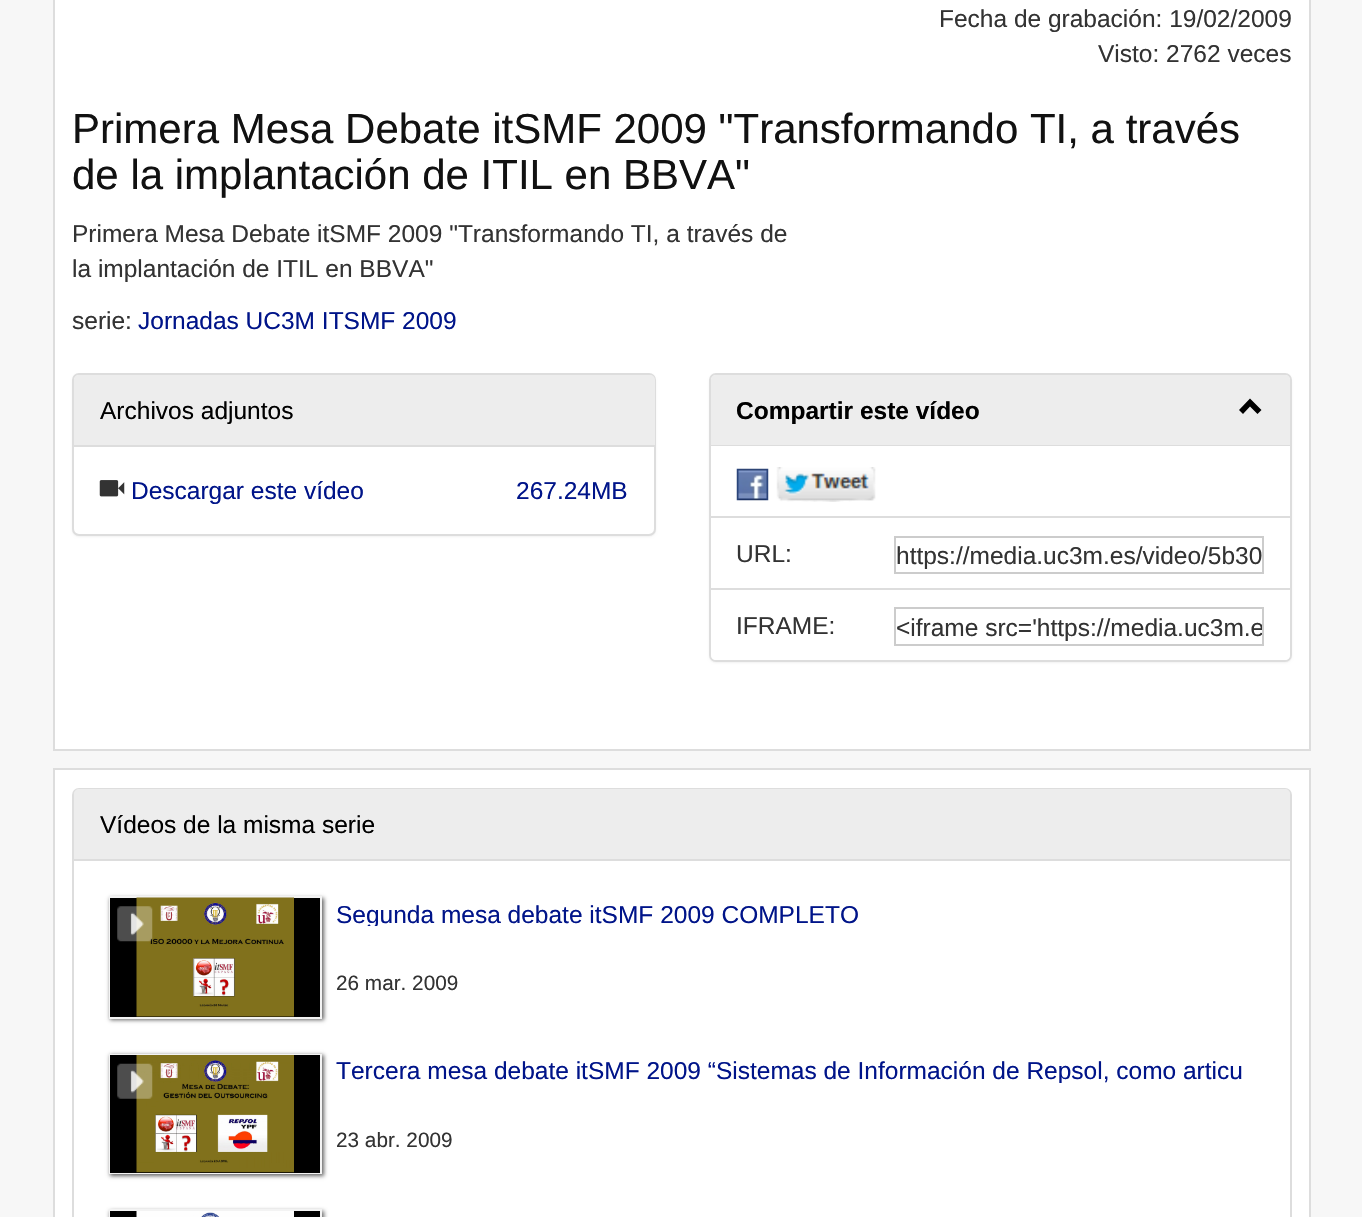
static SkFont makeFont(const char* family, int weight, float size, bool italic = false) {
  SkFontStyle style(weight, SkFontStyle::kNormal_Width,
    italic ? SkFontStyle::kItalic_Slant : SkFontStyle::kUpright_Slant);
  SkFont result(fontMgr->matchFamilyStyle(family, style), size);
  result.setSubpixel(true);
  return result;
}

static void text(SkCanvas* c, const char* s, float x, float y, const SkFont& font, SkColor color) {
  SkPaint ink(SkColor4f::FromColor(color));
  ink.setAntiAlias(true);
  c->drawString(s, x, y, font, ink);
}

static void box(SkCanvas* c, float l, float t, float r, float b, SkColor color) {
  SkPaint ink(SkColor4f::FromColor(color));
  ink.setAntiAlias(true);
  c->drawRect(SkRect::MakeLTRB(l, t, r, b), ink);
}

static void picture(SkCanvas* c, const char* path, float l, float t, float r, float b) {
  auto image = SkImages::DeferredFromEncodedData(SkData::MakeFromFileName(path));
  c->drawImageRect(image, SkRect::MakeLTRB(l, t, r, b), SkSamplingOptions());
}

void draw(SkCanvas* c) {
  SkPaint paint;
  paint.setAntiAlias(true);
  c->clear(0xfff7f7f7);
  paint.setColor(0xffffffff);
  c->drawRect(SkRect::MakeLTRB(54, -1, 1310, 750), paint);
  paint.setStyle(SkPaint::kStroke_Style);
  paint.setStrokeWidth(2);
  paint.setColor(0xffdddddd);
  c->drawRect(SkRect::MakeLTRB(54, -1, 1310, 750), paint);
  SkFont face1 = makeFont("Liberation Sans", 400, 24.5f);
  text(c, "Fecha de grabación: 19/02/2009", 939, 27, face1, 0xff333333);
  text(c, "Visto: 2762 veces", 1098, 62, face1, 0xff333333);
  SkFont face2 = makeFont("Liberation Sans", 400, 42);
  text(c, "Primera Mesa Debate itSMF 2009 \"Transformando TI, a través", 72, 143, face2, 0xff111111);
  text(c, "de la implantación de ITIL en BBVA\"", 72, 189, face2, 0xff111111);
  text(c, "Primera Mesa Debate itSMF 2009 \"Transformando TI, a través de", 72, 242, face1, 0xff333333);
  text(c, "la implantación de ITIL en BBVA\"", 72, 277, face1, 0xff333333);
  text(c, "serie:", 72, 329, face1, 0xff333333);
  text(c, "Jornadas UC3M ITSMF 2009", 138, 329, face1, 0xff001489);
  paint.setStyle(SkPaint::kFill_Style);
  paint.setColor(0x0d000000);
  paint.setMaskFilter(SkMaskFilter::MakeBlur(kNormal_SkBlurStyle, 1));
  c->drawRoundRect(SkRect::MakeLTRB(72, 375, 656, 537), 7, 7, paint);
  paint.setMaskFilter(nullptr);
  paint.setColor(0xffffffff);
  c->drawRoundRect(SkRect::MakeLTRB(73, 374, 655, 535), 6, 6, paint);
  paint.setStyle(SkPaint::kStroke_Style);
  paint.setColor(0xffdddddd);
  c->drawRoundRect(SkRect::MakeLTRB(73, 374, 655, 535), 6, 6, paint);
  paint.setStyle(SkPaint::kFill_Style);
  paint.setColor(0xffededed);
  c->drawPath(SkPathBuilder().moveTo(79, 375).lineTo(650, 375).cubicTo(653, 375, 655, 377, 655, 380).lineTo(655, 446).lineTo(74, 446).lineTo(74, 380).cubicTo(74, 377, 76, 375, 79, 375).close().detach(), paint);
  box(c, 74, 445, 655, 447, 0xffdddddd);
  text(c, "Archivos adjuntos", 100, 419, face1, 0xff000000);
  picture(c, "img_01.png", 99, 480, 125, 497);
  text(c, "Descargar este vídeo", 131, 499, face1, 0xff001489);
  text(c, "267.24MB", 516, 499, face1, 0xff001489);
  paint.setColor(0x0d000000);
  paint.setMaskFilter(SkMaskFilter::MakeBlur(kNormal_SkBlurStyle, 1));
  c->drawRoundRect(SkRect::MakeLTRB(709, 375, 1292, 663), 7, 7, paint);
  paint.setMaskFilter(nullptr);
  paint.setColor(0xffffffff);
  c->drawRoundRect(SkRect::MakeLTRB(710, 374, 1291, 661), 6, 6, paint);
  paint.setStyle(SkPaint::kStroke_Style);
  paint.setColor(0xffdddddd);
  c->drawRoundRect(SkRect::MakeLTRB(710, 374, 1291, 661), 6, 6, paint);
  paint.setStyle(SkPaint::kFill_Style);
  paint.setColor(0xffededed);
  c->drawPath(SkPathBuilder().moveTo(716, 375).lineTo(1285, 375).cubicTo(1288, 375, 1290, 377, 1290, 380).lineTo(1290, 446).lineTo(711, 446).lineTo(711, 380).cubicTo(711, 377, 713, 375, 716, 375).close().detach(), paint);
  box(c, 711, 445, 1290, 446, 0xffdddddd);
  SkFont face3 = makeFont("Liberation Sans", 700, 24.5f);
  text(c, "Compartir este vídeo", 736, 419, face3, 0xff000000);
  paint.setColor(0xff000000);
  c->drawPath(SkPathBuilder().moveTo(1261.5f, 410).lineTo(1257.5f, 414).lineTo(1250, 406.5f).lineTo(1243, 414).lineTo(1239, 410).lineTo(1250, 398.5f).close().detach(), paint);
  box(c, 711, 516, 1290, 518, 0xffdddddd);
  picture(c, "img_02.png", 736, 468, 769, 501);
  picture(c, "img_03.png", 776, 467, 876, 502);
  text(c, "URL:", 736, 562, face1, 0xff333333);
  paint.setStyle(SkPaint::kStroke_Style);
  paint.setColor(0xffcccccc);
  c->drawRect(SkRect::MakeLTRB(895, 537, 1263, 573), paint);
  text(c, "https://media.uc3m.es/video/5b30", 896, 564, face1, 0xff333333);
  paint.setStyle(SkPaint::kFill_Style);
  paint.setColor(0xffffffff);
  c->drawPath(SkPathBuilder().moveTo(711, 588).lineTo(1290, 588).lineTo(1290, 655).cubicTo(1290, 658, 1288, 660, 1285, 660).lineTo(716, 660).cubicTo(713, 660, 711, 658, 711, 655).close().detach(), paint);
  box(c, 711, 588, 1290, 590, 0xffdddddd);
  text(c, "IFRAME:", 736, 634, face1, 0xff333333);
  paint.setStyle(SkPaint::kStroke_Style);
  paint.setColor(0xffcccccc);
  c->drawRect(SkRect::MakeLTRB(895, 608, 1263, 645), paint);
  c->save();
  c->clipRect(SkRect::MakeLTRB(896, 609, 1262, 644));
  text(c, "<iframe src='https://media.uc3m.e", 896, 636, face1, 0xff333333);
  c->restore();
  paint.setStyle(SkPaint::kFill_Style);
  paint.setColor(0xffffffff);
  c->drawRect(SkRect::MakeLTRB(54, 769, 1310, 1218), paint);
  paint.setStyle(SkPaint::kStroke_Style);
  paint.setColor(0xffdddddd);
  c->drawRect(SkRect::MakeLTRB(54, 769, 1310, 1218), paint);
  c->drawRoundRect(SkRect::MakeLTRB(73, 789, 1291, 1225), 6, 6, paint);
  paint.setStyle(SkPaint::kFill_Style);
  paint.setColor(0xffededed);
  c->drawPath(SkPathBuilder().moveTo(79, 789).lineTo(1285, 789).cubicTo(1288, 789, 1290, 791, 1290, 794).lineTo(1290, 861).lineTo(74, 861).lineTo(74, 794).cubicTo(74, 791, 76, 789, 79, 789).close().detach(), paint);
  box(c, 74, 859, 1290, 861, 0xffdddddd);
  text(c, "Vídeos de la misma serie", 100, 833, face1, 0xff000000);
  paint.setColor(0xff666666);
  paint.setMaskFilter(SkMaskFilter::MakeBlur(kNormal_SkBlurStyle, 2));
  c->drawRect(SkRect::MakeLTRB(110, 898, 324, 1020), paint);
  paint.setMaskFilter(nullptr);
  box(c, 109, 896, 322, 1019, 0xfff3f3f3);
  box(c, 110, 898, 320, 1017, 0xff000000);
  picture(c, "img_04.png", 136, 897, 294, 1017);
  picture(c, "img_05.png", 117, 906, 153, 942);
  c->save();
  c->clipRect(SkRect::MakeLTRB(336, 896, 1255, 926));
  text(c, "Segunda mesa debate itSMF 2009 COMPLETO", 336, 923, face1, 0xff001489);
  c->restore();
  SkFont face4 = makeFont("Liberation Sans", 400, 20.75f);
  text(c, "26 mar. 2009", 336, 990, face4, 0xff333333);
  paint.setMaskFilter(SkMaskFilter::MakeBlur(kNormal_SkBlurStyle, 2));
  c->drawRect(SkRect::MakeLTRB(110, 1055, 324, 1176), paint);
  paint.setMaskFilter(nullptr);
  box(c, 109, 1054, 322, 1174, 0xfff3f3f3);
  box(c, 110, 1055, 320, 1173, 0xff000000);
  picture(c, "img_07.png", 136, 1055, 294, 1173);
  picture(c, "img_06.png", 117, 1063, 153, 1099);
  c->save();
  c->clipRect(SkRect::MakeLTRB(336, 1054, 1255, 1083));
  text(c, "Tercera mesa debate itSMF 2009 “Sistemas de Información de Repsol, como articu", 336, 1079, face1, 0xff001489);
  c->restore();
  text(c, "23 abr. 2009", 336, 1147, face4, 0xff333333);
  paint.setMaskFilter(SkMaskFilter::MakeBlur(kNormal_SkBlurStyle, 2));
  c->drawRect(SkRect::MakeLTRB(110, 1211, 324, 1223), paint);
  paint.setMaskFilter(nullptr);
  box(c, 109, 1209, 322, 1217, 0xfff3f3f3);
  box(c, 110, 1211, 320, 1217, 0xff000000);
  picture(c, "img_08.png", 136, 1211, 294, 1217);
}
